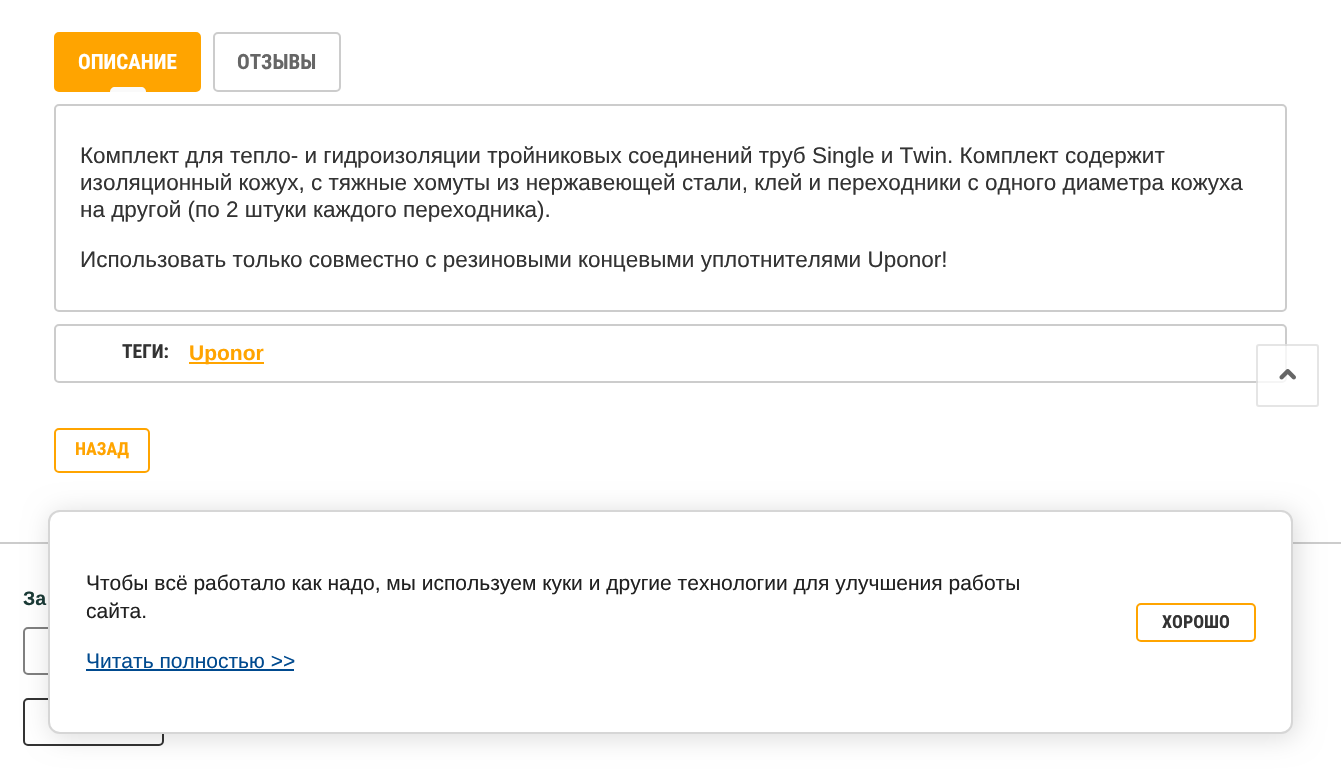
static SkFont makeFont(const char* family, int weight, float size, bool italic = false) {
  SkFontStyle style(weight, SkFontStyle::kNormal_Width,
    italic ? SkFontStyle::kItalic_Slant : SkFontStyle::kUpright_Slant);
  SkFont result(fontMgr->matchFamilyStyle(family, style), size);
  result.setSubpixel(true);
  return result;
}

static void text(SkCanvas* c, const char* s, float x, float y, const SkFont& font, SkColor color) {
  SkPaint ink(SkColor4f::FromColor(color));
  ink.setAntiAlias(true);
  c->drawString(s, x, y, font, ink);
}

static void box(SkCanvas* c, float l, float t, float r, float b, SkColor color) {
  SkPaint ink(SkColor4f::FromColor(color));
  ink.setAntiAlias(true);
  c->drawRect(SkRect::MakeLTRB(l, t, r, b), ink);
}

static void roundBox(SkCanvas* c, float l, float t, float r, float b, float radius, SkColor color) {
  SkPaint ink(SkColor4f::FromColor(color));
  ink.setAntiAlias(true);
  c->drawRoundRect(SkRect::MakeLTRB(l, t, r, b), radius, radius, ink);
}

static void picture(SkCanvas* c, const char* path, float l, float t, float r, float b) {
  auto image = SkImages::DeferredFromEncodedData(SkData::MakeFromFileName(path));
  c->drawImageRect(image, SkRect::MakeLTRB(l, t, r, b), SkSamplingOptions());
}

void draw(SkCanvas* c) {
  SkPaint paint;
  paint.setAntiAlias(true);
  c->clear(0xffffffff);
  paint.setColor(0xffffa400);
  c->drawRoundRect(SkRect::MakeLTRB(55, 33, 200, 91), 4, 4, paint);
  paint.setStyle(SkPaint::kStroke_Style);
  paint.setStrokeWidth(2);
  c->drawRoundRect(SkRect::MakeLTRB(55, 33, 200, 91), 4, 4, paint);
  SkFont face1 = makeFont("Roboto Condensed", 700, 21);
  text(c, "ОПИСАНИЕ", 78, 69, face1, 0xffffffff);
  paint.setStyle(SkPaint::kFill_Style);
  paint.setColor(0xfffafafa);
  c->drawPath(SkPathBuilder().moveTo(115, 87).lineTo(141, 87).cubicTo(144, 87, 146, 89, 146, 92).lineTo(110, 92).cubicTo(110, 89, 112, 87, 115, 87).close().detach(), paint);
  paint.setStyle(SkPaint::kStroke_Style);
  paint.setColor(0xffcccccc);
  c->drawRoundRect(SkRect::MakeLTRB(214, 33, 340, 91), 4, 4, paint);
  text(c, "ОТЗЫВЫ", 237, 69, face1, 0xff666666);
  c->drawRoundRect(SkRect::MakeLTRB(55, 105, 1286, 311), 4, 4, paint);
  SkFont face2 = makeFont("Liberation Sans", 400, 22.5f);
  text(c, "Комплект для тепло- и гидроизоляции тройниковых соединений труб Single и Twin. Комплект содержит", 80, 163, face2, 0xff333333);
  text(c, "изоляционный кожух, с тяжные хомуты из нержавеющей стали, клей и переходники с одного диаметра кожуха", 80, 190, face2, 0xff333333);
  text(c, "на другой (по 2 штуки каждого переходника).", 80, 217, face2, 0xff333333);
  text(c, "Использовать только совместно с резиновыми концевыми уплотнителями Uponor!", 80, 267, face2, 0xff333333);
  c->drawRoundRect(SkRect::MakeLTRB(55, 325, 1286, 382), 4, 4, paint);
  SkFont face3 = makeFont("Roboto Condensed", 700, 19.5f);
  text(c, "ТЕГИ:", 122, 358, face3, 0xff333333);
  box(c, 189, 362, 264, 364, 0xffffa400);
  SkFont face4 = makeFont("Liberation Sans", 700, 21);
  text(c, "Uponor", 189, 360, face4, 0xffffa400);
  paint.setColor(0xffffa400);
  c->drawRoundRect(SkRect::MakeLTRB(55, 429, 149, 472), 4, 4, paint);
  SkFont face5 = makeFont("Roboto Condensed", 700, 18);
  text(c, "НАЗАД", 75, 455, face5, 0xffffa400);
  roundBox(c, 1256, 344, 1319, 407, 3, 0xccffffff);
  paint.setColor(0x1a000000);
  c->drawRoundRect(SkRect::MakeLTRB(1257, 345, 1318, 406), 2, 2, paint);
  picture(c, "img_01.png", 1279, 369, 1296, 380);
  box(c, 0, 542, 1341, 544, 0xffcccccc);
  SkFont face6 = makeFont("Liberation Sans", 700, 19.5f);
  text(c, "За", 23, 605, face6, 0xff1a3a36);
  paint.setColor(0xff808080);
  c->drawRoundRect(SkRect::MakeLTRB(24, 628, 454, 674), 4, 4, paint);
  paint.setColor(0xff333333);
  c->drawRoundRect(SkRect::MakeLTRB(24, 699, 163, 745), 4, 4, paint);
  paint.setStyle(SkPaint::kFill_Style);
  paint.setColor(0x24000000);
  paint.setMaskFilter(SkMaskFilter::MakeBlur(kNormal_SkBlurStyle, 13.5f));
  c->drawRoundRect(SkRect::MakeLTRB(51, 513, 1296, 737), 12, 12, paint);
  paint.setMaskFilter(nullptr);
  paint.setColor(0xffffffff);
  c->drawRoundRect(SkRect::MakeLTRB(49, 511, 1292, 733), 11, 11, paint);
  paint.setStyle(SkPaint::kStroke_Style);
  paint.setColor(0xffd6d6d6);
  c->drawRoundRect(SkRect::MakeLTRB(49, 511, 1292, 733), 11, 11, paint);
  SkFont face7 = makeFont("Liberation Sans", 400, 21);
  text(c, "Чтобы всё работало как надо, мы используем куки и другие технологии для улучшения работы", 86, 590, face7, 0xff212121);
  text(c, "сайта.", 86, 618, face7, 0xff212121);
  text(c, "Читать полностью >>", 86, 668, face7, 0xff004a8f);
  box(c, 86, 669, 294, 671, 0xff004a8f);
  paint.setColor(0xffffa400);
  c->drawRoundRect(SkRect::MakeLTRB(1137, 604, 1255, 641), 4, 4, paint);
  text(c, "ХОРОШО", 1162, 628, face5, 0xff333333);
}
